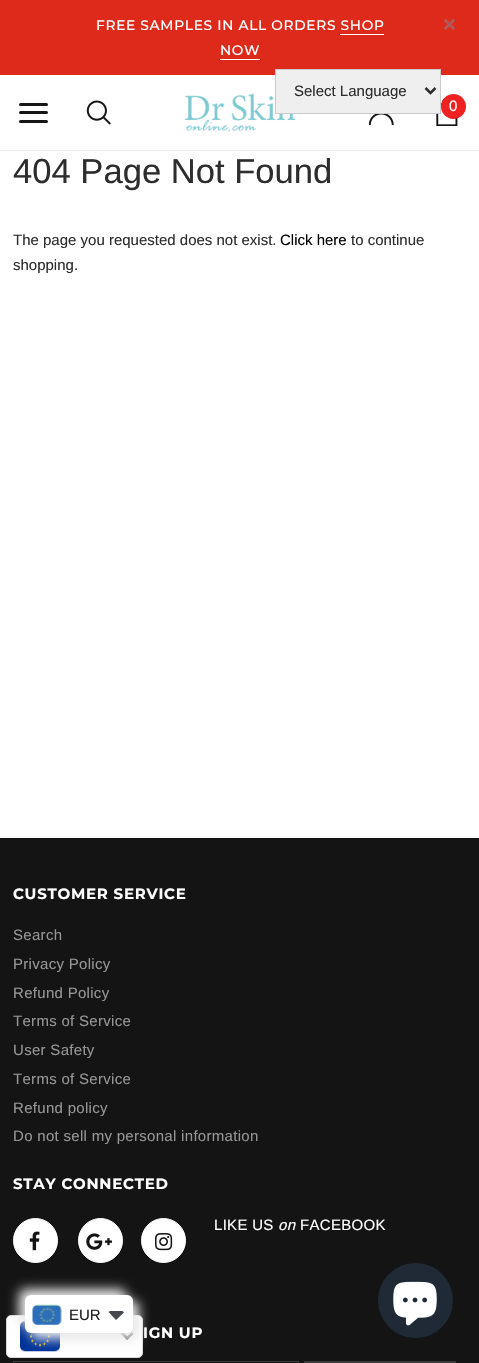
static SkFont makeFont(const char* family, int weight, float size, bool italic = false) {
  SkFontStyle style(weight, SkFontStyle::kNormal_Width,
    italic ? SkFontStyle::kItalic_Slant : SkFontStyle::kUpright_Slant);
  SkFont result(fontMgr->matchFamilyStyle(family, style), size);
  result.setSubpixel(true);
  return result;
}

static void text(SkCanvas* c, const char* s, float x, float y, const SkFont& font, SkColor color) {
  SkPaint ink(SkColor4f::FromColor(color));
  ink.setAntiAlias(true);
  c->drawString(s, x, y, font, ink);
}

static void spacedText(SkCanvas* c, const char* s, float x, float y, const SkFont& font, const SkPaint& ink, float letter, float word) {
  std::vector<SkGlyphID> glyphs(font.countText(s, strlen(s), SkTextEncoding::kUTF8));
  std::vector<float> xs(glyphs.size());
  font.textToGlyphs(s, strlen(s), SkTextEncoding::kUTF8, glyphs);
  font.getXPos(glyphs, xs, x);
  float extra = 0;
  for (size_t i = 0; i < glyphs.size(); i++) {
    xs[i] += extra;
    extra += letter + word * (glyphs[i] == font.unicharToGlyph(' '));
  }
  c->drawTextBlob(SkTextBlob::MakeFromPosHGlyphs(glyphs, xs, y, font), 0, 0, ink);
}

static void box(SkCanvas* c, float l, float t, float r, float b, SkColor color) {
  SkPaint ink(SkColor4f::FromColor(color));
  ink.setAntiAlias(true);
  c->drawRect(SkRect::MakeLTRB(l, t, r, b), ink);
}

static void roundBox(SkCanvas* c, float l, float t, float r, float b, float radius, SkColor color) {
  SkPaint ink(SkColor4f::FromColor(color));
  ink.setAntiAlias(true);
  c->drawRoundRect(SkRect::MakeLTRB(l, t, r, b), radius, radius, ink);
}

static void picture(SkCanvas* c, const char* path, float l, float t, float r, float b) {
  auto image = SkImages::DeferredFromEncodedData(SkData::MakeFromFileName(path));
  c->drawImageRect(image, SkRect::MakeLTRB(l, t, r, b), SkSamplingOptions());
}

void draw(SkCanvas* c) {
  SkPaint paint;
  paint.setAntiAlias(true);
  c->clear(0xffffffff);
  box(c, 0, 0, 479, 75, 0xffde2a1b);
  SkFont face1 = makeFont("Montserrat", 500, 13.75f);
  paint.setColor(0xffffffff);
  spacedText(c, "FREE SAMPLES IN ALL ORDERS SHOP", 96, 30, face1, paint, 0.7f, 0);
  picture(c, "img_01.png", 443, 18, 455, 30);
  spacedText(c, "NOW", 220, 55, face1, paint, 0.7f, 0);
  box(c, 340, 34, 384, 35, 0xffffffff);
  box(c, 220, 59, 260, 60, 0xffffffff);
  box(c, 0, 150, 479, 151, 0xffebebeb);
  roundBox(c, 19, 111, 48, 114, 1.5f, 0xff161616);
  roundBox(c, 19, 103, 48, 106, 1.5f, 0xff161616);
  roundBox(c, 19, 120, 48, 123, 1.5f, 0xff161616);
  picture(c, "img_02.png", 86, 100, 111, 125);
  picture(c, "img_03.png", 185, 93, 295, 132);
  picture(c, "img_04.png", 369, 114, 394, 125);
  picture(c, "img_05.png", 436, 98, 458, 126);
  paint.setColor(0xfff02121);
  c->drawCircle(453.5f, 106.5f, 12.5f, paint);
  SkFont face2 = makeFont("Arimo", 400, 15);
  paint.setColor(0xffffffff);
  spacedText(c, "0", 449, 111, face2, paint, 0.3f, 0);
  SkFont face3 = makeFont("Arimo", 400, 34.6f);
  text(c, "404 Page Not Found", 13, 183, face3, 0xff2d2d2d);
  text(c, "The page you requested does not exist.", 13, 245, face2, 0xff2d2d2d);
  text(c, "Click here", 280, 245, face2, 0xff000000);
  text(c, "to continue", 351, 245, face2, 0xff2d2d2d);
  text(c, "shopping.", 13, 270, face2, 0xff2d2d2d);
  box(c, 0, 838, 479, 1363, 0xff141414);
  SkFont face4 = makeFont("Montserrat", 700, 15);
  spacedText(c, "CUSTOMER SERVICE", 13, 899, face4, paint, 0.75f, 0);
  paint.setColor(0xff969696);
  spacedText(c, "Search", 13, 940, face2, paint, 0.3f, 0);
  spacedText(c, "Privacy Policy", 13, 969, face2, paint, 0.3f, 0);
  spacedText(c, "Refund Policy", 13, 998, face2, paint, 0.3f, 0);
  spacedText(c, "Terms of Service", 13, 1026, face2, paint, 0.3f, 0);
  spacedText(c, "User Safety", 13, 1055, face2, paint, 0.3f, 0);
  spacedText(c, "Terms of Service", 13, 1084, face2, paint, 0.3f, 0);
  spacedText(c, "Refund policy", 13, 1113, face2, paint, 0.3f, 0);
  spacedText(c, "Do not sell my personal information", 13, 1141, face2, paint, 0.3f, 0);
  paint.setColor(0xffffffff);
  spacedText(c, "STAY CONNECTED", 13, 1189, face4, paint, 0.75f, 0);
  c->drawCircle(35.5f, 1240.5f, 22, paint);
  paint.setStyle(SkPaint::kStroke_Style);
  paint.setStrokeWidth(1);
  c->drawCircle(35.5f, 1240.5f, 22, paint);
  picture(c, "img_06.png", 29, 1231, 40, 1251);
  paint.setStyle(SkPaint::kFill_Style);
  c->drawCircle(100.5f, 1240.5f, 22, paint);
  paint.setStyle(SkPaint::kStroke_Style);
  c->drawCircle(100.5f, 1240.5f, 22, paint);
  picture(c, "img_07.png", 86, 1233, 112, 1250);
  paint.setStyle(SkPaint::kFill_Style);
  c->drawCircle(163.5f, 1240.5f, 22, paint);
  paint.setStyle(SkPaint::kStroke_Style);
  c->drawCircle(163.5f, 1240.5f, 22, paint);
  picture(c, "img_08.png", 155, 1233, 173, 1251);
  paint.setStyle(SkPaint::kFill_Style);
  spacedText(c, "LIKE US", 214, 1230, face2, paint, 0.3f, 0);
  SkFont face5 = makeFont("Arimo", 400, 15, true);
  spacedText(c, "on", 278, 1230, face5, paint, 0.3f, 0);
  spacedText(c, "FACEBOOK", 300, 1230, face2, paint, 0.3f, 0);
  spacedText(c, "IGN UP", 143, 1338, face4, paint, 0.75f, 0);
  paint.setStyle(SkPaint::kStroke_Style);
  paint.setColor(0xff3b3b3b);
  c->drawRect(SkRect::MakeLTRB(13.5f, 1361.5f, 298.5f, 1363.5f), paint);
  box(c, 304, 1361, 456, 1363, 0xff3b3b3b);
  paint.setStyle(SkPaint::kFill_Style);
  paint.setColor(0xffefefef);
  c->drawRect(SkRect::MakeLTRB(275.5f, 69.5f, 440.5f, 113.5f), paint);
  paint.setStyle(SkPaint::kStroke_Style);
  paint.setColor(0xffcbcbcb);
  c->drawRect(SkRect::MakeLTRB(275.5f, 69.5f, 440.5f, 113.5f), paint);
  paint.setStrokeWidth(2.5f);
  paint.setColor(0xff2d2d2d);
  c->drawPath(SkPathBuilder().moveTo(425.5f, 88).lineTo(430.5f, 93).lineTo(435.5f, 88).detach(), paint);
  text(c, "Select Language", 294, 96, face2, 0xff2d2d2d);
  paint.setStyle(SkPaint::kFill_Style);
  paint.setColor(0xffffffff);
  c->drawRoundRect(SkRect::MakeLTRB(6.5f, 1315.5f, 142.5f, 1357.5f), 4.5f, 4.5f, paint);
  paint.setStyle(SkPaint::kStroke_Style);
  paint.setStrokeWidth(1);
  paint.setColor(0xffdadada);
  c->drawRoundRect(SkRect::MakeLTRB(6.5f, 1315.5f, 142.5f, 1357.5f), 4.5f, 4.5f, paint);
  picture(c, "img_11.png", 20, 1321, 60, 1352);
  paint.setStyle(SkPaint::kFill_Style);
  paint.setColor(0xff555555);
  c->drawPath(SkPathBuilder().moveTo(131.5f, 1332).lineTo(133.5f, 1334).lineTo(127, 1340).lineTo(125.5f, 1338).close().detach(), paint);
  c->drawPath(SkPathBuilder().moveTo(123, 1332).lineTo(129, 1338).lineTo(127, 1340).lineTo(121, 1334).close().detach(), paint);
  paint.setColor(0xffe8e8e8);
  paint.setMaskFilter(SkMaskFilter::MakeBlur(kNormal_SkBlurStyle, 6));
  c->drawRoundRect(SkRect::MakeLTRB(19, 1289, 126, 1326), 6, 6, paint);
  paint.setMaskFilter(nullptr);
  paint.setMaskFilter(SkMaskFilter::MakeBlur(kNormal_SkBlurStyle, 6));
  c->drawRoundRect(SkRect::MakeLTRB(31, 1301, 139, 1339), 6, 6, paint);
  paint.setMaskFilter(nullptr);
  roundBox(c, 25, 1295, 133, 1333, 6, 0xffffffff);
  picture(c, "img_09.png", 32, 1304, 62, 1326);
  text(c, "EUR", 69, 1320, face2, 0xff1e1e1e);
  paint.setColor(0xff47494e);
  c->drawPath(SkPathBuilder().moveTo(108.5f, 1312).lineTo(110, 1311).lineTo(122.5f, 1311).lineTo(124, 1312.5f).lineTo(116, 1320).close().detach(), paint);
  paint.setColor(0xff202a36);
  c->drawCircle(415.5f, 1300.5f, 37.5f, paint);
  picture(c, "img_10.png", 393, 1281, 437, 1326);
}
